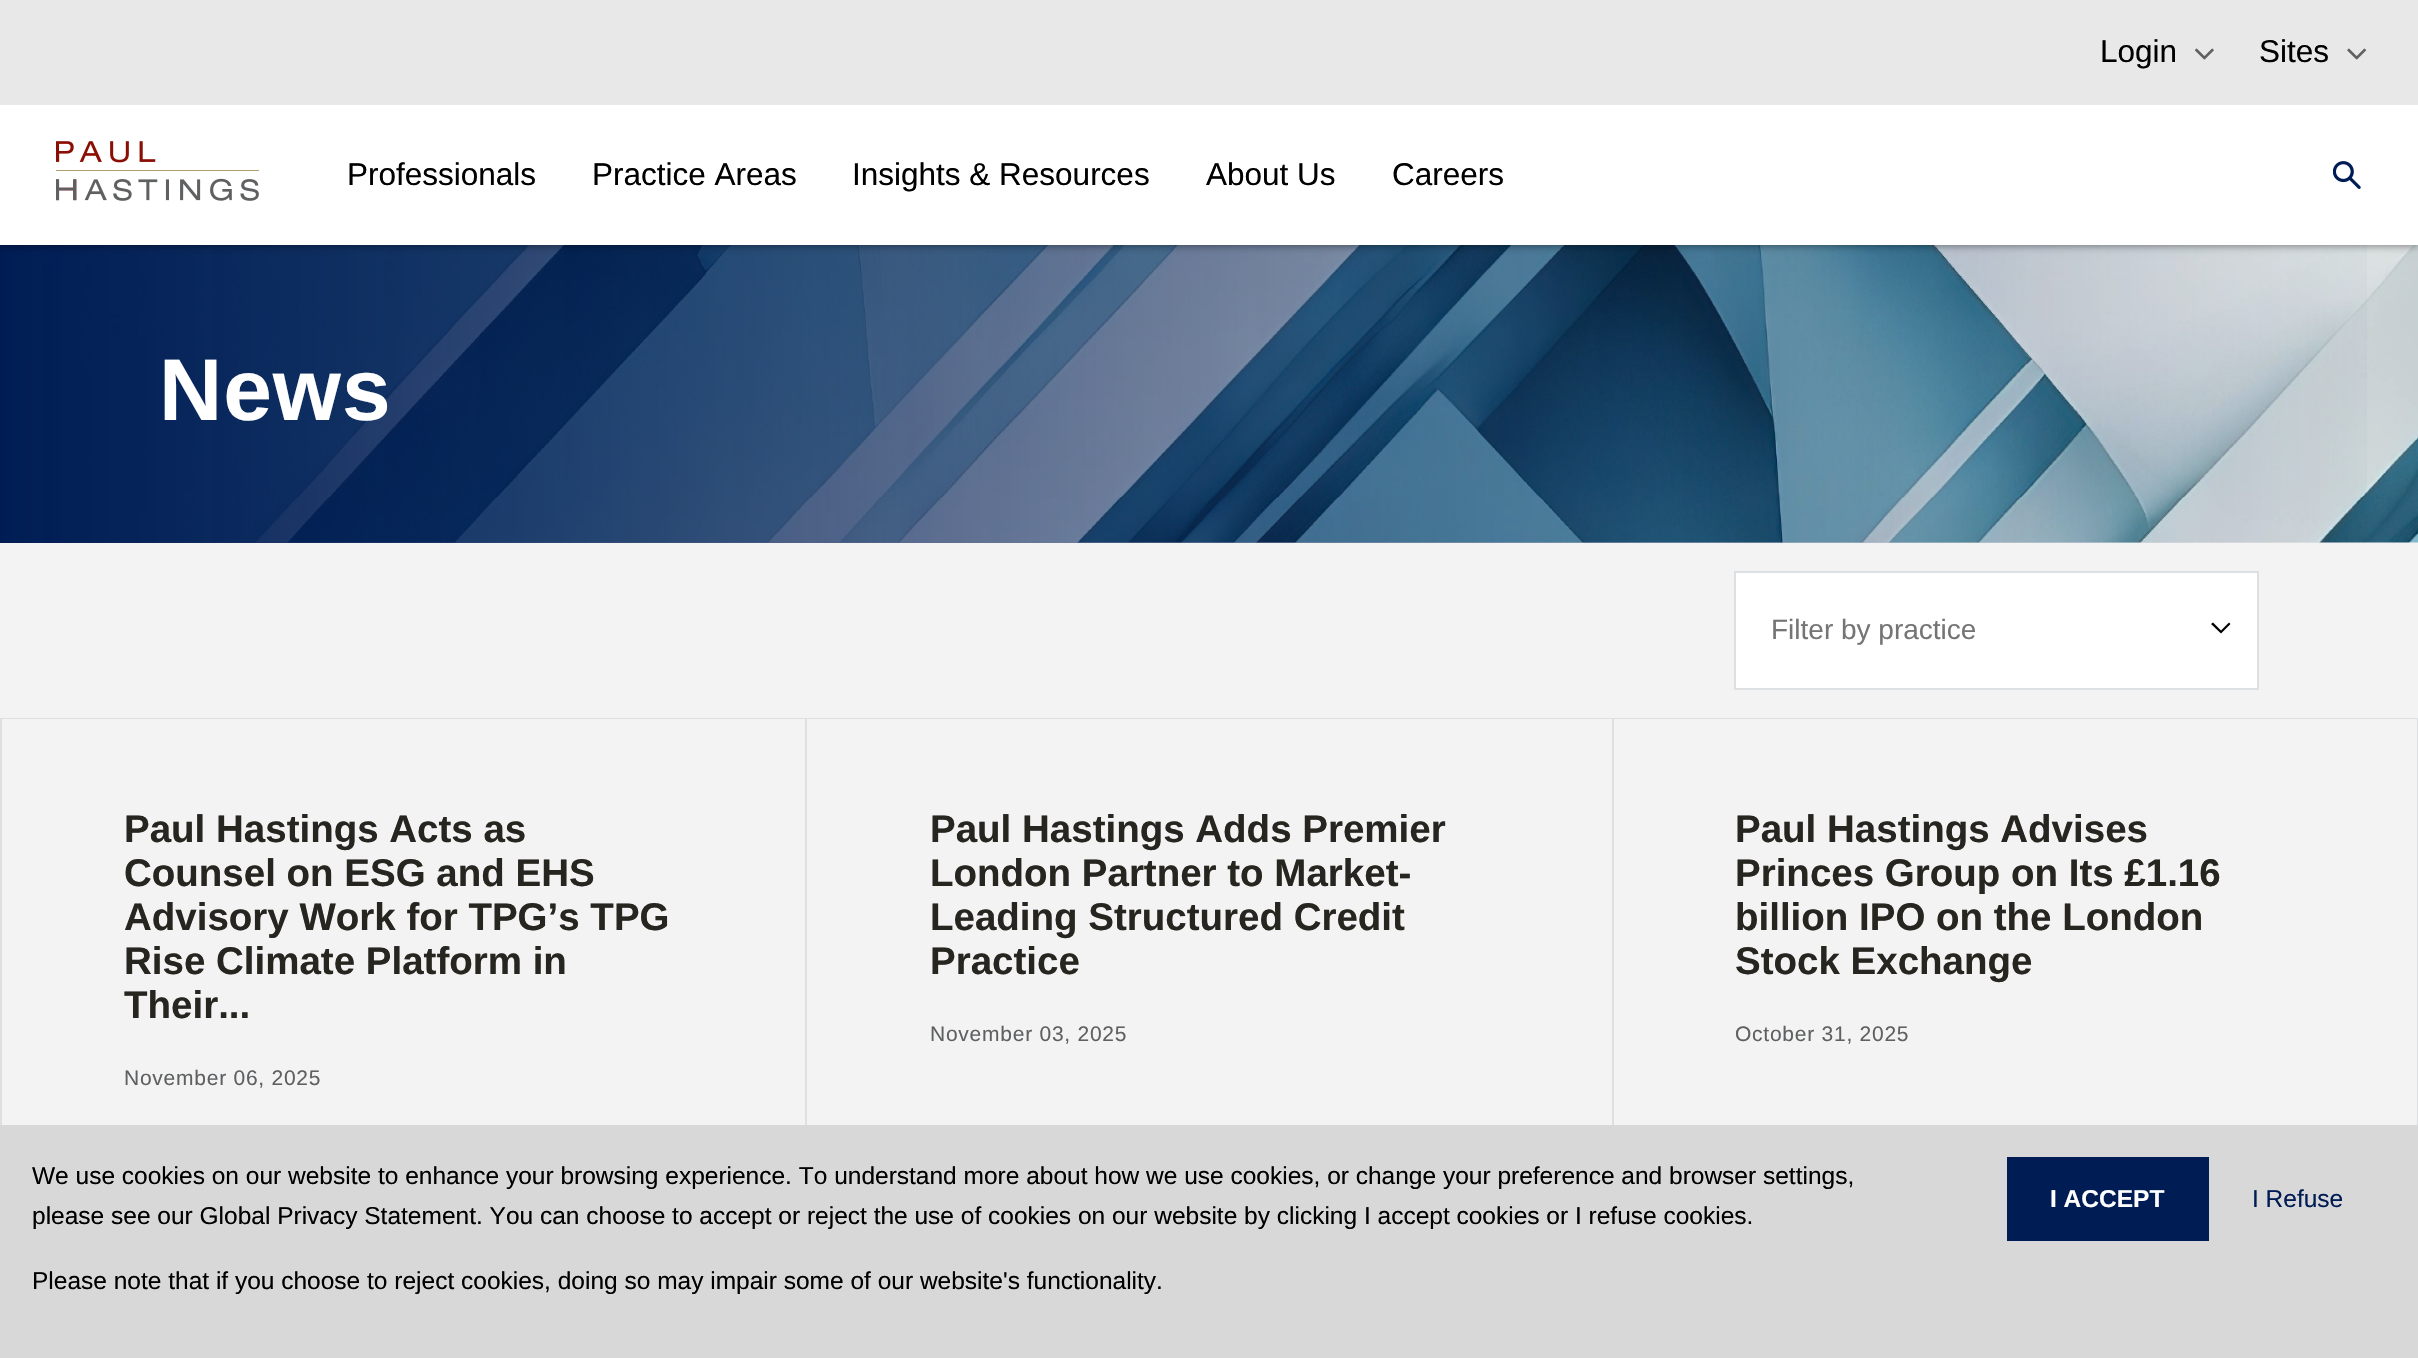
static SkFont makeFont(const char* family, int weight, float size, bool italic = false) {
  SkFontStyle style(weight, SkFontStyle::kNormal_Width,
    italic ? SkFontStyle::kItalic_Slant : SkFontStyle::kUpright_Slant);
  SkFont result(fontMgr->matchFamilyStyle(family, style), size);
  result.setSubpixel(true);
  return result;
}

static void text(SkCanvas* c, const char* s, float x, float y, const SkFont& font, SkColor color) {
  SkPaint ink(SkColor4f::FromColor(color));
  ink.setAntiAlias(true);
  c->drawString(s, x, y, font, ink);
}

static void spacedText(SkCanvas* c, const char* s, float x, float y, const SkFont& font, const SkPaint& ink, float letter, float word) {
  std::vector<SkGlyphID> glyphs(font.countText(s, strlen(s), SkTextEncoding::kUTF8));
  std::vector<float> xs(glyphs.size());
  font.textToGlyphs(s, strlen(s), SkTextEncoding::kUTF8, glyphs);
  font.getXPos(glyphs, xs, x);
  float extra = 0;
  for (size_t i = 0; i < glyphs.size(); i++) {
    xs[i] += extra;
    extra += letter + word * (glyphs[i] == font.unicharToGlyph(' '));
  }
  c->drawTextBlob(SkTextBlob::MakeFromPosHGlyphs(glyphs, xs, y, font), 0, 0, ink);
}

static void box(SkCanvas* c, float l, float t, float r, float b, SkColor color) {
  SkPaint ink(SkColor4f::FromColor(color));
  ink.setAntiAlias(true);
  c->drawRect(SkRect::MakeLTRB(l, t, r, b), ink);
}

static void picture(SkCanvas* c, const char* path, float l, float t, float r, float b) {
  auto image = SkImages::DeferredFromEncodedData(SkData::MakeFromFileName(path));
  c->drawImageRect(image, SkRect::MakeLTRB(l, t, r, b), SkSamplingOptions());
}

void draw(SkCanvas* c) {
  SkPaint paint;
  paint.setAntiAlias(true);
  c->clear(0xfff3f3f3);
  picture(c, "img_05.png", 14, 245, 2418, 543);
  {
    const SkColor colors[] = {0xff001c54, 0x00001c54};
    const float stops[] = {0, 1};
    const SkPoint ends[] = {{0, 390}, {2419, 390}};
    paint.setShader(SkGradientShader::MakeLinear(ends, colors, stops, 2, SkTileMode::kClamp));
    paint.setAlpha(255);
  }
  c->drawRect(SkRect::MakeLTRB(0, 245, 2367, 543), paint);
  paint.setShader(nullptr);
  paint.setColor(0x80000000);
  paint.setMaskFilter(SkMaskFilter::MakeBlur(kNormal_SkBlurStyle, 4.5f));
  c->drawRect(SkRect::MakeLTRB(0, 0, 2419, 245), paint);
  paint.setMaskFilter(nullptr);
  box(c, 0, 105, 2418, 245, 0xffffffff);
  box(c, 0, 0, 2418, 105, 0xffe8e8e8);
  SkFont face1 = makeFont("Liberation Sans", 400, 31.5f);
  text(c, "Login", 2100, 62, face1, 0xff000000);
  picture(c, "img_01.png", 2195, 48, 2214, 60);
  text(c, "Sites", 2259, 62, face1, 0xff000000);
  picture(c, "img_02.png", 2347, 48, 2367, 60);
  picture(c, "img_03.png", 56, 141, 259, 201);
  text(c, "Professionals", 347, 185, face1, 0xff000000);
  text(c, "Practice Areas", 592, 185, face1, 0xff000000);
  text(c, "Insights & Resources", 852, 185, face1, 0xff000000);
  text(c, "About Us", 1206, 185, face1, 0xff000000);
  text(c, "Careers", 1392, 185, face1, 0xff000000);
  picture(c, "img_04.png", 2333, 161, 2361, 189);
  SkFont face2 = makeFont("Liberation Sans", 700, 87.5f);
  paint.setColor(0xffffffff);
  spacedText(c, "News", 159, 420, face2, paint, 1, 0);
  c->drawRect(SkRect::MakeLTRB(1735, 572, 2258, 689), paint);
  paint.setStyle(SkPaint::kStroke_Style);
  paint.setStrokeWidth(2);
  paint.setColor(0xffdde0e3);
  c->drawRect(SkRect::MakeLTRB(1735, 572, 2258, 689), paint);
  SkFont face3 = makeFont("Liberation Sans", 400, 28);
  text(c, "Filter by practice", 1771, 639, face3, 0xff757575);
  paint.setStyle(SkPaint::kFill_Style);
  paint.setColor(0xff000000);
  c->drawPath(SkPathBuilder().moveTo(2221, 633.5f).lineTo(2211, 624).lineTo(2213, 622.5f).lineTo(2221, 630.5f).lineTo(2229, 622.5f).lineTo(2230.5f, 624).close().detach(), paint);
  box(c, 0, 718, 2418, 719, 0xffdde0e3);
  box(c, 0, 718, 2, 1125, 0xffdde0e3);
  box(c, 805, 719, 807, 1125, 0xffdde0e3);
  SkFont face4 = makeFont("Liberation Sans", 700, 38.5f);
  text(c, "Paul Hastings Acts as", 124, 842, face4, 0xff27251f);
  text(c, "Counsel on ESG and EHS", 124, 886, face4, 0xff27251f);
  text(c, "Advisory Work for TPG’s TPG", 124, 930, face4, 0xff27251f);
  text(c, "Rise Climate Platform in", 124, 974, face4, 0xff27251f);
  text(c, "Their...", 124, 1018, face4, 0xff27251f);
  SkFont face5 = makeFont("Liberation Sans", 400, 21);
  paint.setColor(0xff5f6062);
  spacedText(c, "November 06, 2025", 124, 1085, face5, paint, 0.75f, 0);
  box(c, 1612, 719, 1614, 1125, 0xffdde0e3);
  text(c, "Paul Hastings Adds Premier", 930, 842, face4, 0xff27251f);
  text(c, "London Partner to Market-", 930, 886, face4, 0xff27251f);
  text(c, "Leading Structured Credit", 930, 930, face4, 0xff27251f);
  text(c, "Practice", 930, 974, face4, 0xff27251f);
  spacedText(c, "November 03, 2025", 930, 1041, face5, paint, 0.75f, 0);
  box(c, 2417, 719, 2418, 1125, 0xffdde0e3);
  text(c, "Paul Hastings Advises", 1735, 842, face4, 0xff27251f);
  text(c, "Princes Group on Its £1.16", 1735, 886, face4, 0xff27251f);
  text(c, "billion IPO on the London", 1735, 930, face4, 0xff27251f);
  text(c, "Stock Exchange", 1735, 974, face4, 0xff27251f);
  spacedText(c, "October 31, 2025", 1735, 1041, face5, paint, 0.75f, 0);
  box(c, 0, 1125, 2418, 1358, 0xffd8d8d8);
  SkFont face6 = makeFont("Liberation Sans", 400, 24.5f);
  text(c, "We use cookies on our website to enhance your browsing experience. To understand more about how we use cookies, or change your preference and browser settings,", 32, 1184, face6, 0xff000000);
  text(c, "please see our Global Privacy Statement. You can choose to accept or reject the use of cookies on our website by clicking I accept cookies or I refuse cookies.", 32, 1224, face6, 0xff000000);
  text(c, "Please note that if you choose to reject cookies, doing so may impair some of our website's functionality.", 32, 1289, face6, 0xff000000);
  box(c, 2007, 1157, 2209, 1241, 0xff001c54);
  SkFont face7 = makeFont("Liberation Sans", 700, 24.5f);
  text(c, "I ACCEPT", 2050, 1207, face7, 0xffffffff);
  text(c, "I Refuse", 2252, 1207, face6, 0xff001c54);
}
